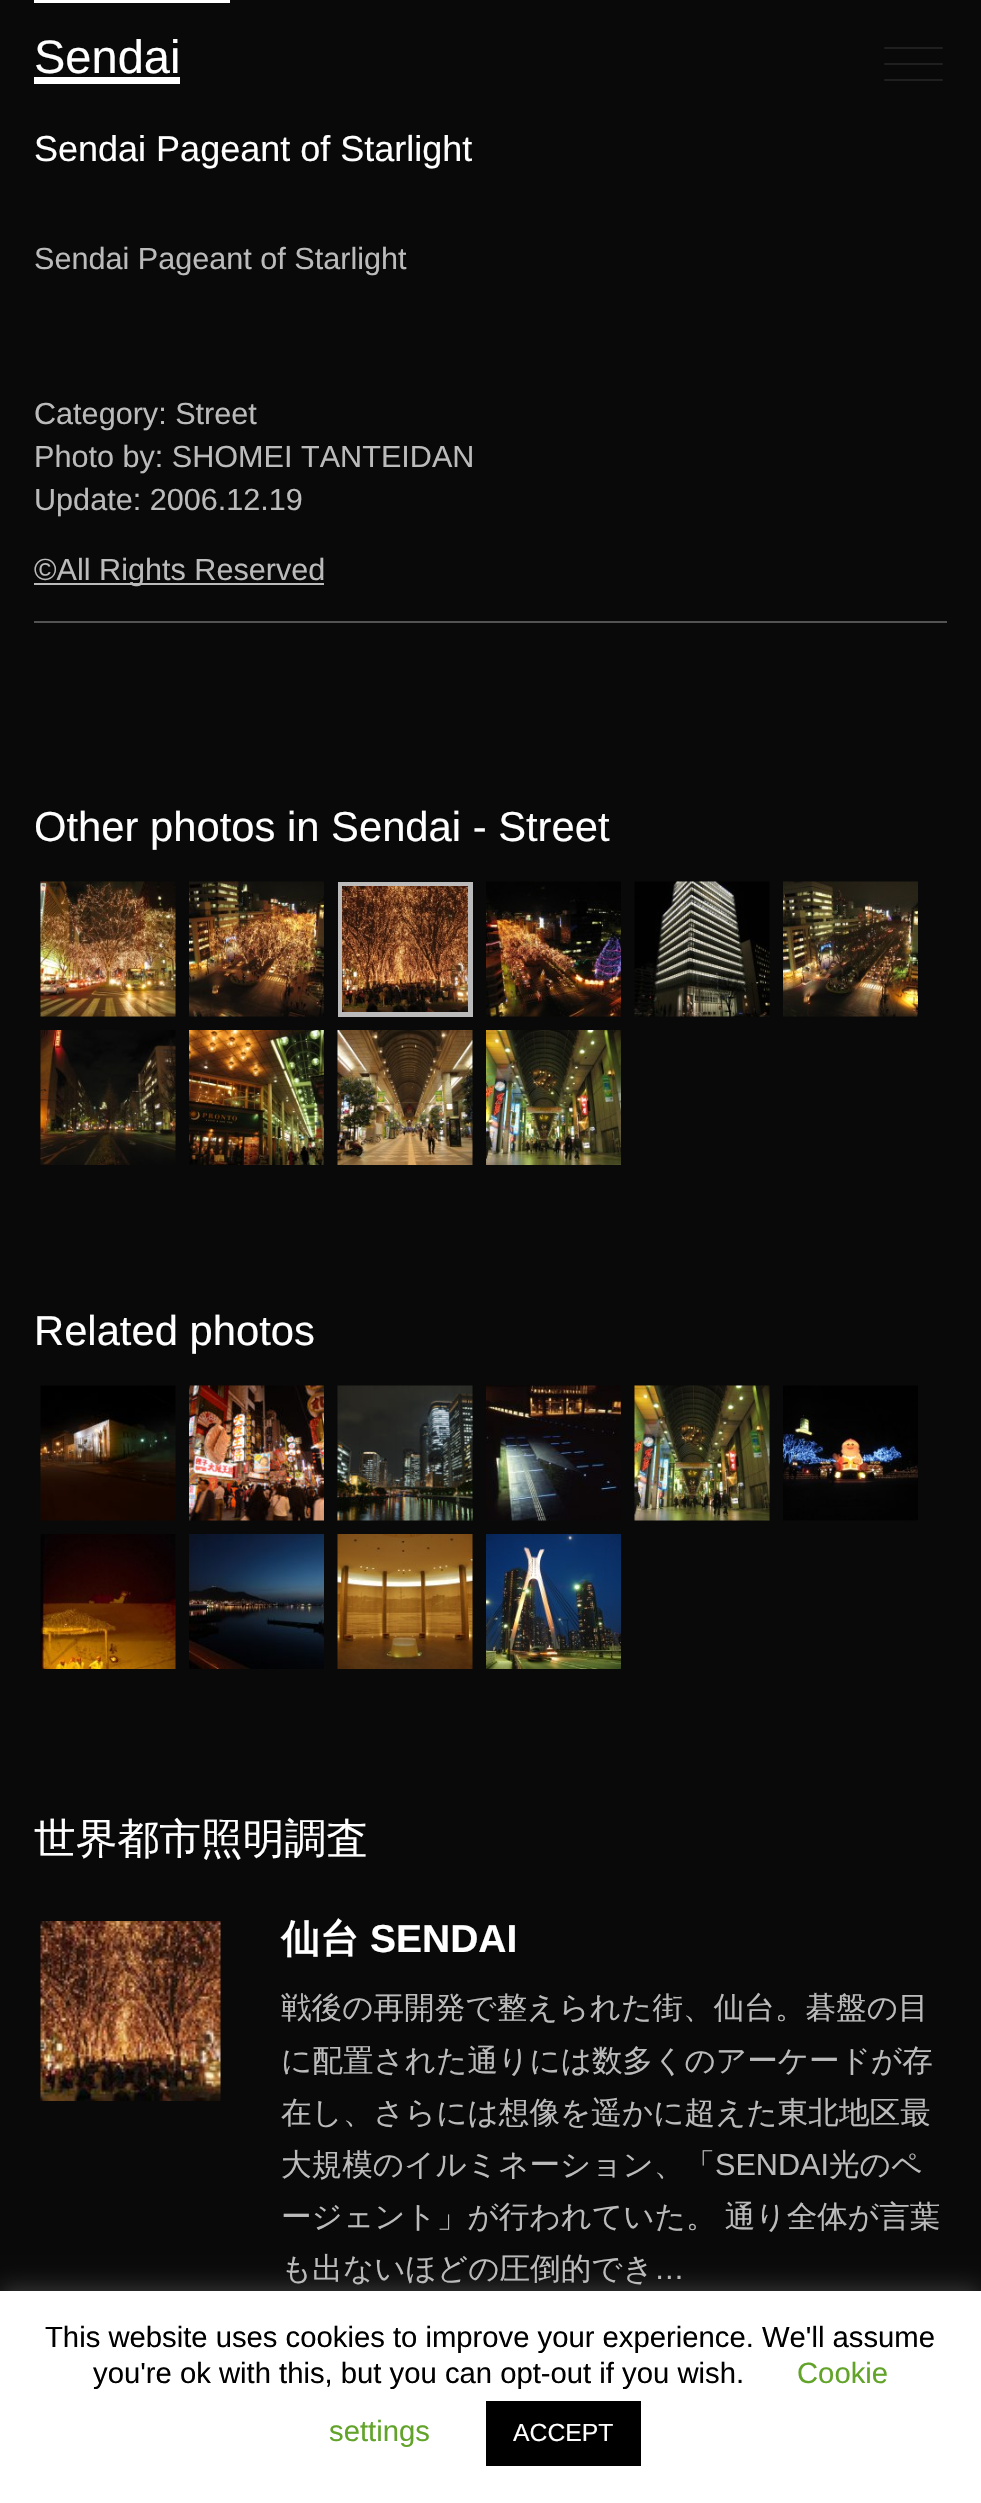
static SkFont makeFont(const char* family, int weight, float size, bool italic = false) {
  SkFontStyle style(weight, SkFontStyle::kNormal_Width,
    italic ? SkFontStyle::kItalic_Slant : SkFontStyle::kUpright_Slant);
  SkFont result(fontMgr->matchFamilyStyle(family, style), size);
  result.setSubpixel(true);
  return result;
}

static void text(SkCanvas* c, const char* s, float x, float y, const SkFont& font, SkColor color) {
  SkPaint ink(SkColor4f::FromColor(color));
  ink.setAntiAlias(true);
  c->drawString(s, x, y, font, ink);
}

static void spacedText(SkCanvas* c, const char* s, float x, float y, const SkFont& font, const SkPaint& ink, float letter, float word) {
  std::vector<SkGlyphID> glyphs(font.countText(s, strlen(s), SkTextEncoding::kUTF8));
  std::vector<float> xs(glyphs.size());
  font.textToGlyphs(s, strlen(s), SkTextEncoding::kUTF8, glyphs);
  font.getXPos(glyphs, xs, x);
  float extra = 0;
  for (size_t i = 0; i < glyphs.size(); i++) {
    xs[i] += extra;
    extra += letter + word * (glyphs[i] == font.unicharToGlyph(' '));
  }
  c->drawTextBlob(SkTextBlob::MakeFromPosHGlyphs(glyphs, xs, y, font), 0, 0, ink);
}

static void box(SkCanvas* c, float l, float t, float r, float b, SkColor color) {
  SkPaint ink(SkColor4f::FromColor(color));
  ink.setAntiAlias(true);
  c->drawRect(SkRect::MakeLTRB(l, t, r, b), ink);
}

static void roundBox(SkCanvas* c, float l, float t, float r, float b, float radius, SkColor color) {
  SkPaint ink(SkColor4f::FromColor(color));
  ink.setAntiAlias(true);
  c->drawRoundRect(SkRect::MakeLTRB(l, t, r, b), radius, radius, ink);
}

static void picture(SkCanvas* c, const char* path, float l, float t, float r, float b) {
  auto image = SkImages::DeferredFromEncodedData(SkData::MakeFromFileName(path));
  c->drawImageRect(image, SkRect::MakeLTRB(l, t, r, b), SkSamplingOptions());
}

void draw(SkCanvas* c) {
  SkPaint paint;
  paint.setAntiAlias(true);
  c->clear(0xff090909);
  box(c, 34, 0, 230, 3, 0xffffffff);
  SkFont face1 = makeFont("Liberation Sans", 400, 47);
  text(c, "Sendai", 34, 73, face1, 0xffffffff);
  box(c, 34, 77, 180, 84, 0xffffffff);
  SkFont face2 = makeFont("Liberation Sans", 400, 36);
  text(c, "Sendai Pageant of Starlight", 34, 161, face2, 0xffffffff);
  SkFont face3 = makeFont("Liberation Sans", 400, 30.6f);
  text(c, "Sendai Pageant of Starlight", 34, 269, face3, 0xffbbbbbb);
  text(c, "Category: Street", 34, 424, face3, 0xffbbbbbb);
  text(c, "Photo by: SHOMEI TANTEIDAN", 34, 467, face3, 0xffbbbbbb);
  text(c, "Update: 2006.12.19", 34, 510, face3, 0xffbbbbbb);
  box(c, 34, 583, 324, 585, 0xffbbbbbb);
  text(c, "©All Rights Reserved", 34, 580, face3, 0xffbbbbbb);
  box(c, 34, 621, 947, 623, 0xff535353);
  SkFont face4 = makeFont("Liberation Sans", 400, 41.75f);
  text(c, "Other photos in Sendai - Street", 34, 841, face4, 0xffffffff);
  picture(c, "img_01.png", 40, 881, 176, 1017);
  picture(c, "img_02.png", 189, 881, 324, 1017);
  paint.setStyle(SkPaint::kStroke_Style);
  paint.setStrokeWidth(5);
  paint.setColor(0xffbbbbbb);
  c->drawRect(SkRect::MakeLTRB(340.5f, 884.5f, 470.5f, 1014.5f), paint);
  picture(c, "img_03.png", 342, 886, 468, 1012);
  picture(c, "img_04.png", 486, 881, 621, 1017);
  picture(c, "img_05.png", 634, 881, 770, 1017);
  picture(c, "img_06.png", 783, 881, 918, 1017);
  picture(c, "img_07.png", 40, 1030, 176, 1165);
  picture(c, "img_08.png", 189, 1030, 324, 1165);
  picture(c, "img_09.png", 337, 1030, 473, 1165);
  picture(c, "img_10.png", 486, 1030, 621, 1165);
  text(c, "Related photos", 34, 1345, face4, 0xffffffff);
  picture(c, "img_11.png", 40, 1385, 176, 1521);
  picture(c, "img_12.png", 189, 1385, 324, 1521);
  picture(c, "img_13.png", 337, 1385, 473, 1521);
  picture(c, "img_14.png", 486, 1385, 621, 1521);
  picture(c, "img_15.png", 634, 1385, 770, 1521);
  picture(c, "img_16.png", 783, 1385, 918, 1521);
  picture(c, "img_17.png", 40, 1534, 176, 1669);
  picture(c, "img_18.png", 189, 1534, 324, 1669);
  picture(c, "img_19.png", 337, 1534, 473, 1669);
  picture(c, "img_20.png", 486, 1534, 621, 1669);
  SkFont face5 = makeFont("WenQuanYi Zen Hei", 500, 41.75f);
  text(c, "世界都市照明調査", 34, 1853, face5, 0xffffffff);
  picture(c, "img_21.png", 40, 1921, 221, 2101);
  SkFont face6 = makeFont("WenQuanYi Zen Hei", 700, 39);
  text(c, "仙台", 281, 1952, face6, 0xffffffff);
  SkFont face7 = makeFont("Liberation Sans", 700, 39);
  text(c, "SENDAI", 370, 1952, face7, 0xffffffff);
  SkFont face8 = makeFont("WenQuanYi Zen Hei", 500, 30.6f);
  text(c, "戦後の再開発で整えられた街、仙台。碁盤の目", 281, 2018, face8, 0xffbbbbbb);
  text(c, "に配置された通りには数多くのアーケードが存", 281, 2071, face8, 0xffbbbbbb);
  text(c, "在し、さらには想像を遥かに超えた東北地区最", 281, 2123, face8, 0xffbbbbbb);
  text(c, "大規模のイルミネーション、「", 281, 2175, face8, 0xffbbbbbb);
  text(c, "SENDAI", 715, 2175, face3, 0xffbbbbbb);
  text(c, "光のペ", 829, 2175, face8, 0xffbbbbbb);
  paint.setStyle(SkPaint::kFill_Style);
  spacedText(c, "ージェント」が行われていた。 通り全体が言葉", 281, 2227, face8, paint, 0, -1);
  text(c, "も出ないほどの圧倒的でき", 281, 2279, face8, 0xffbbbbbb);
  text(c, "…", 654, 2279, face3, 0xffbbbbbb);
  roundBox(c, 884, 63, 943, 65, 1, 0xff1f1f1f);
  roundBox(c, 884, 47, 943, 49, 1, 0xff1f1f1f);
  roundBox(c, 884, 79, 943, 81, 1, 0xff1f1f1f);
  paint.setColor(0x4dacabab);
  paint.setMaskFilter(SkMaskFilter::MakeBlur(kNormal_SkBlurStyle, 11));
  c->drawRect(SkRect::MakeLTRB(0, 2288, 981, 2502), paint);
  paint.setMaskFilter(nullptr);
  box(c, 0, 2291, 981, 2503, 0xffffffff);
  SkFont face9 = makeFont("Liberation Sans", 400, 29.25f);
  text(c, "This website uses cookies to improve your experience. We'll assume", 45, 2347, face9, 0xff000000);
  text(c, "you're ok with this, but you can opt-out if you wish.", 93, 2383, face9, 0xff000000);
  text(c, "Cookie", 797, 2383, face9, 0xff62a329);
  text(c, "settings", 329, 2441, face9, 0xff62a329);
  box(c, 486, 2401, 641, 2466, 0xff000000);
  SkFont face10 = makeFont("Liberation Sans", 400, 24.75f);
  text(c, "ACCEPT", 513, 2441, face10, 0xffffffff);
}
